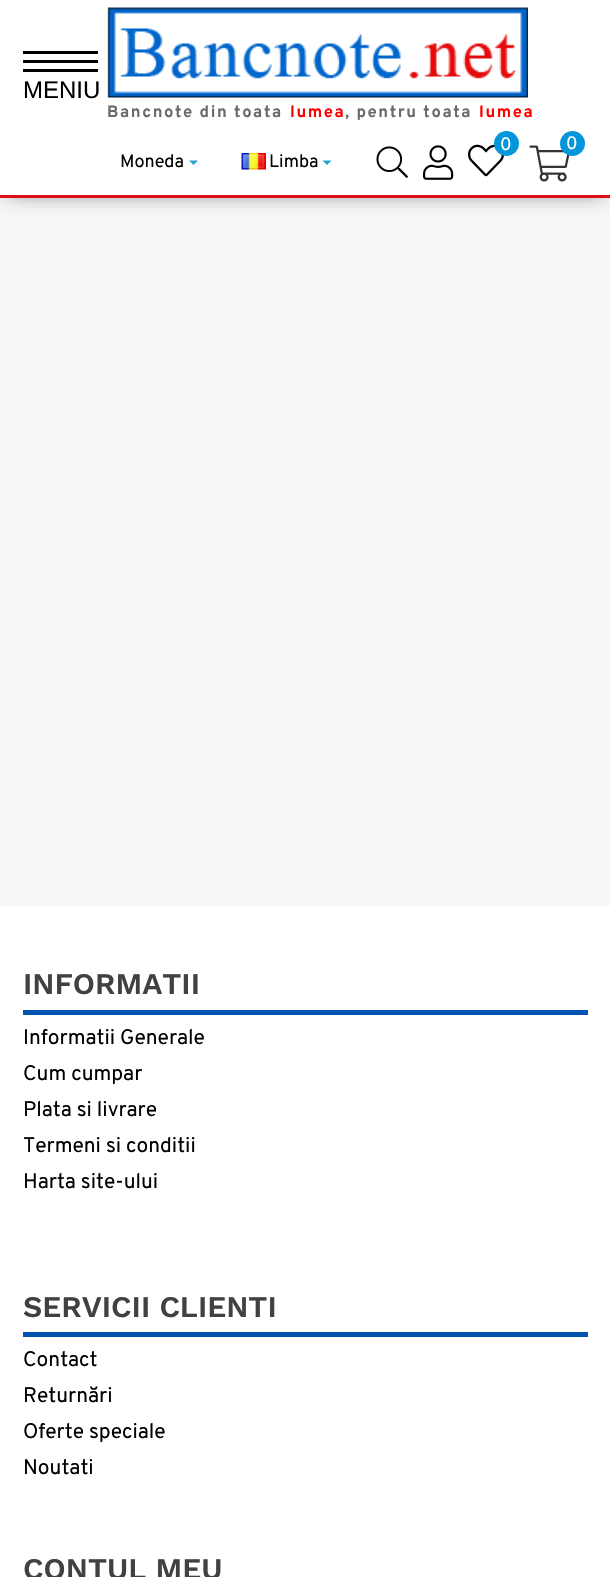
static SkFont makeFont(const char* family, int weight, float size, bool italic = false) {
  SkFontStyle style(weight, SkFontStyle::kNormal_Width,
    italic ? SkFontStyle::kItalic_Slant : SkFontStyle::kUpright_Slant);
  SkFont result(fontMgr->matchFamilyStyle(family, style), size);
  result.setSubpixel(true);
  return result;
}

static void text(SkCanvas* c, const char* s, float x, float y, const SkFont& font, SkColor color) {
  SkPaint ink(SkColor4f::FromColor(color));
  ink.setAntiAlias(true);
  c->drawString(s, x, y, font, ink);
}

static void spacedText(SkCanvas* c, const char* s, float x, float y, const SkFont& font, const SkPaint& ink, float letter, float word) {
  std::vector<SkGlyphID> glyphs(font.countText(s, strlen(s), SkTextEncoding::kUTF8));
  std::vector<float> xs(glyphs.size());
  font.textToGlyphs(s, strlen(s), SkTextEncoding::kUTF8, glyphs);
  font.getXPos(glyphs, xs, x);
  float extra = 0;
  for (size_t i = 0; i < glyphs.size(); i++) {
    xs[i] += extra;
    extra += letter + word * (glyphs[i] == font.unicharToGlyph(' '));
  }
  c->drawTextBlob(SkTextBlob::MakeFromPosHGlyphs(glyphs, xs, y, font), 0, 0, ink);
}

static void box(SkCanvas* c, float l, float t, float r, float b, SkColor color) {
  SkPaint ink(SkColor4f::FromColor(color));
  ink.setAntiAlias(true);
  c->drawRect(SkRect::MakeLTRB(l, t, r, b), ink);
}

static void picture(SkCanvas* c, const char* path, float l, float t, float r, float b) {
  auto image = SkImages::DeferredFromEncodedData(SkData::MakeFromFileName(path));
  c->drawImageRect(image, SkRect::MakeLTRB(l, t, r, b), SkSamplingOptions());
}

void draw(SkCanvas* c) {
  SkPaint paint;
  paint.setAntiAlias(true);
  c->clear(0xfff8f7f8);
  paint.setColor(0xad000000);
  paint.setMaskFilter(SkMaskFilter::MakeBlur(kNormal_SkBlurStyle, 10.5f));
  c->drawRect(SkRect::MakeLTRB(8, 8, 603, 191), paint);
  paint.setMaskFilter(nullptr);
  box(c, 0, 0, 610, 195, 0xffffffff);
  box(c, 0, 195, 610, 198, 0xffdd0e15);
  box(c, 23, 51, 98, 54, 0xff000000);
  box(c, 23, 60, 98, 63, 0xff000000);
  box(c, 23, 69, 98, 72, 0xff000000);
  SkFont face1 = makeFont("Liberation Sans", 400, 24);
  text(c, "MENIU", 23, 98, face1, 0xff000000);
  picture(c, "img_01.png", 107, 7, 528, 98);
  SkFont face2 = makeFont("Overpass", 700, 16.5f);
  paint.setColor(0xff6a6a6a);
  spacedText(c, "Bancnote din toata", 107, 117, face2, paint, 1.6f, 0);
  paint.setColor(0xffff0000);
  spacedText(c, "lumea", 290, 117, face2, paint, 1.6f, 0);
  paint.setColor(0xff6a6a6a);
  spacedText(c, ", pentru toata", 345, 117, face2, paint, 1.6f, 0);
  paint.setColor(0xffff0000);
  spacedText(c, "lumea", 479, 117, face2, paint, 1.6f, 0);
  picture(c, "img_02.png", 376, 146, 408, 178);
  picture(c, "img_03.png", 423, 145, 454, 180);
  picture(c, "img_04.png", 468, 144, 504, 177);
  paint.setColor(0xff0496db);
  c->drawCircle(506.5f, 143.5f, 12.5f, paint);
  SkFont face3 = makeFont("Overpass", 400, 18);
  text(c, "0", 500, 150, face3, 0xffffffff);
  picture(c, "img_05.png", 529, 145, 570, 182);
  c->drawCircle(572.5f, 143.5f, 12.5f, paint);
  text(c, "0", 566, 149, face3, 0xffffffff);
  text(c, "Moneda", 120, 167, face3, 0xff000000);
  paint.setColor(0xff23a1d1);
  c->drawPath(SkPathBuilder().moveTo(189, 160.5f).lineTo(198, 160.5f).lineTo(193.5f, 165).close().detach(), paint);
  picture(c, "img_06.png", 241, 153, 266, 170);
  text(c, "Limba", 269, 167, face3, 0xff000000);
  c->drawPath(SkPathBuilder().moveTo(322.5f, 160.5f).lineTo(331.5f, 160.5f).lineTo(327, 165).close().detach(), paint);
  box(c, 0, 906, 610, 1577, 0xffffffff);
  box(c, 23, 1010, 588, 1015, 0xff0155b0);
  SkFont face4 = makeFont("Work Sans", 600, 30);
  text(c, "INFORMATII", 23, 994, face4, 0xff414141);
  SkFont face5 = makeFont("Overpass", 400, 21);
  text(c, "Informatii Generale", 23, 1044, face5, 0xff000000);
  text(c, "Cum cumpar", 23, 1080, face5, 0xff000000);
  text(c, "Plata si livrare", 23, 1116, face5, 0xff000000);
  text(c, "Termeni si conditii", 23, 1152, face5, 0xff000000);
  text(c, "Harta site-ului", 23, 1188, face5, 0xff000000);
  box(c, 23, 1332, 588, 1337, 0xff0155b0);
  text(c, "SERVICII CLIENTI", 23, 1317, face4, 0xff414141);
  text(c, "Contact", 23, 1366, face5, 0xff000000);
  text(c, "Returnări", 23, 1402, face5, 0xff000000);
  text(c, "Oferte speciale", 23, 1438, face5, 0xff000000);
  text(c, "Noutati", 23, 1474, face5, 0xff000000);
  text(c, "CONTUL MEU", 23, 1579, face4, 0xff414141);
}
